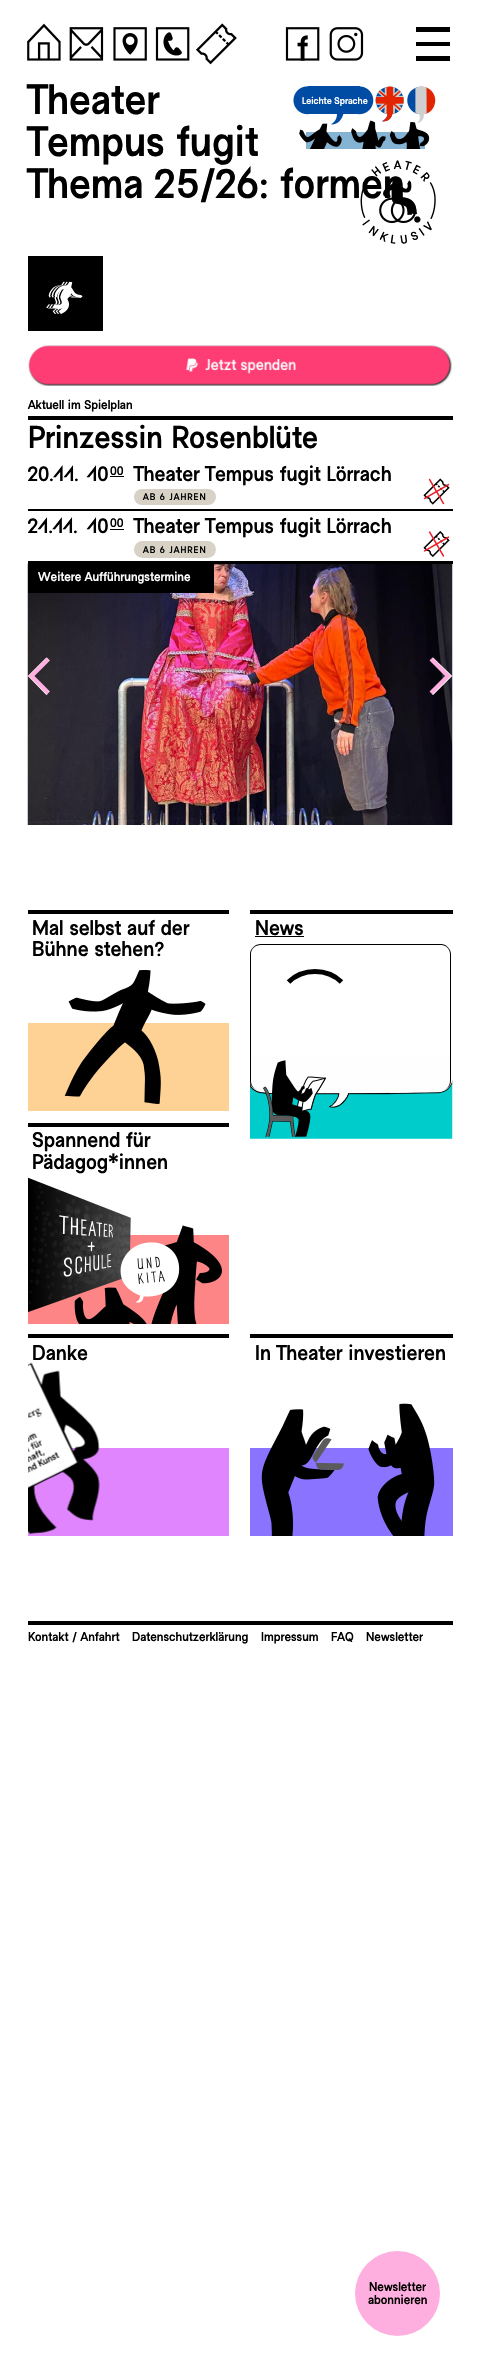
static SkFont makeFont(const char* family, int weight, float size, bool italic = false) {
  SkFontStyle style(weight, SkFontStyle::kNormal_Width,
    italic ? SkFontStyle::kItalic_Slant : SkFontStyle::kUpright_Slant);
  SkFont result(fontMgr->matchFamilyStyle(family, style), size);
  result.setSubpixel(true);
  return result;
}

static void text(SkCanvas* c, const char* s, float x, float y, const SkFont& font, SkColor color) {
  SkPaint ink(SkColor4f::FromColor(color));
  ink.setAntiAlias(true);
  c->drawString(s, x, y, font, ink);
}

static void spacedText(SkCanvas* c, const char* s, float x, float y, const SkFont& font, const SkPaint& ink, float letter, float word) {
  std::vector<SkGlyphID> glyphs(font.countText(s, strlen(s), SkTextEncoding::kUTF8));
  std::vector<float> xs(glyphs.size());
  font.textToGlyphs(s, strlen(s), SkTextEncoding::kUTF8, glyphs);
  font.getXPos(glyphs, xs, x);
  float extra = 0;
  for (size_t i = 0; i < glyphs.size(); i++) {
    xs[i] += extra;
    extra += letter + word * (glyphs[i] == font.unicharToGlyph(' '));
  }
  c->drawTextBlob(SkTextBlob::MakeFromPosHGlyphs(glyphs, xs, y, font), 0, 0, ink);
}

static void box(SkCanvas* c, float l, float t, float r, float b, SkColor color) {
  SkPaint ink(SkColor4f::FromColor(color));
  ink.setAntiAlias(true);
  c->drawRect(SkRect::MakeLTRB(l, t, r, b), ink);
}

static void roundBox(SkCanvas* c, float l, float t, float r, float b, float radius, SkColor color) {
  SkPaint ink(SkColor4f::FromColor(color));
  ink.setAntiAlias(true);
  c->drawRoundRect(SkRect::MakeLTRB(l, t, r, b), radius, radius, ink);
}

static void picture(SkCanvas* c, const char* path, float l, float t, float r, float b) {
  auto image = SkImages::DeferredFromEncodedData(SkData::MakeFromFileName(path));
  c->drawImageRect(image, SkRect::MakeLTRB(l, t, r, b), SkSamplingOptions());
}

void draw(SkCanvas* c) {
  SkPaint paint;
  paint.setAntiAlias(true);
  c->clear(0xffffffff);
  picture(c, "img_01.png", 27, 23, 61, 61);
  picture(c, "img_02.png", 69, 27, 104, 61);
  picture(c, "img_03.png", 113, 27, 147, 61);
  picture(c, "img_04.png", 155, 27, 190, 61);
  picture(c, "img_05.png", 196, 23, 237, 65);
  picture(c, "img_06.png", 285, 27, 320, 61);
  picture(c, "img_07.png", 329, 27, 364, 61);
  box(c, 416, 27, 450, 32, 0xff000000);
  box(c, 416, 42, 450, 46, 0xff000000);
  box(c, 416, 56, 450, 61, 0xff000000);
  SkFont face1 = makeFont("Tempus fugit", 400, 42.5f);
  text(c, "Theater", 28, 114, face1, 0xff000000);
  text(c, "Tempus fugit", 28, 156, face1, 0xff000000);
  text(c, "Thema 25/26: formen", 28, 198, face1, 0xff000000);
  picture(c, "img_08.png", 293, 86, 436, 149);
  SkFont face2 = makeFont("Tempus fugit", 400, 9.75f);
  text(c, "Leichte Sprache", 302, 104, face2, 0xffffffff);
  SkFont face3 = makeFont("Tempus fugit", 400, 12);
  c->save();
  c->rotate(-38.9f, 376, 177);
  text(c, "H", 376, 177, face3, 0xff000000);
  c->restore();
  c->save();
  c->rotate(-23.4f, 385, 172);
  text(c, "E", 385, 172, face3, 0xff000000);
  c->restore();
  c->save();
  c->rotate(-0.4f, 394, 169);
  text(c, "A", 394, 169, face3, 0xff000000);
  c->restore();
  c->save();
  c->rotate(15.1f, 404, 169);
  text(c, "T", 404, 169, face3, 0xff000000);
  c->restore();
  c->save();
  c->rotate(26.5f, 412, 172);
  text(c, "E", 412, 172, face3, 0xff000000);
  c->restore();
  c->save();
  c->rotate(49.4f, 420, 177);
  text(c, "R", 420, 177, face3, 0xff000000);
  c->restore();
  c->save();
  c->rotate(53.9f, 362, 224);
  text(c, "l", 362, 224, face3, 0xff000000);
  c->restore();
  c->save();
  c->rotate(-43.6f, 429, 232);
  text(c, "V", 429, 232, face3, 0xff000000);
  c->restore();
  picture(c, "img_09.png", 360, 180, 436, 224);
  c->save();
  c->rotate(36.2f, 368, 232);
  text(c, "N", 368, 232, face3, 0xff000000);
  c->restore();
  c->save();
  c->rotate(25.6f, 379, 239);
  text(c, "K", 379, 239, face3, 0xff000000);
  c->restore();
  c->save();
  c->rotate(8.7f, 390, 243);
  text(c, "L", 390, 243, face3, 0xff000000);
  c->restore();
  c->save();
  c->rotate(-8.2f, 401, 244);
  text(c, "U", 401, 244, face3, 0xff000000);
  c->restore();
  c->save();
  c->rotate(-22.9f, 413, 241);
  text(c, "S", 413, 241, face3, 0xff000000);
  c->restore();
  c->save();
  c->rotate(-35.4f, 423, 236);
  text(c, "l", 423, 236, face3, 0xff000000);
  c->restore();
  box(c, 28, 256, 103, 331, 0xff000000);
  picture(c, "img_10.png", 46, 281, 83, 314);
  picture(c, "img_11.png", 28, 345, 452, 386);
  box(c, 28, 416, 453, 420, 0xff000000);
  SkFont face4 = makeFont("Tempus fugit", 400, 12.75f);
  text(c, "Aktuell im Spielplan", 28, 409, face4, 0xff000000);
  SkFont face5 = makeFont("Tempus fugit", 400, 31.75f);
  text(c, "Prinzessin Rosenblüte", 28, 448, face5, 0xff000000);
  box(c, 28, 509, 453, 511, 0xff000000);
  c->save();
  c->clipRect(SkRect::MakeLTRB(28, 421, 453, 825));
  SkFont face6 = makeFont("Tempus fugit", 400, 21.25f);
  text(c, "20.11.", 28, 481, face6, 0xff000000);
  c->restore();
  text(c, "10", 87, 481, face6, 0xff000000);
  text(c, "00", 110, 475, face4, 0xff000000);
  box(c, 110, 476, 124, 477, 0xff000000);
  text(c, "Theater Tempus fugit Lörrach", 134, 481, face6, 0xff000000);
  roundBox(c, 134, 489, 216, 505, 8, 0xffd8d2c6);
  SkFont face7 = makeFont("Tempus fugit", 400, 9.5f);
  paint.setColor(0xff000000);
  spacedText(c, "AB 6 JAHREN", 143, 500, face7, paint, 1, 0);
  picture(c, "img_12.png", 423, 478, 450, 505);
  picture(c, "img_14.png", 27, 563, 453, 825);
  box(c, 28, 561, 453, 564, 0xff000000);
  c->save();
  c->clipRect(SkRect::MakeLTRB(28, 421, 453, 825));
  text(c, "21.11.", 28, 533, face6, 0xff000000);
  c->restore();
  text(c, "10", 87, 533, face6, 0xff000000);
  text(c, "00", 110, 527, face4, 0xff000000);
  box(c, 110, 529, 124, 530, 0xff000000);
  text(c, "Theater Tempus fugit Lörrach", 134, 533, face6, 0xff000000);
  roundBox(c, 134, 541, 216, 558, 8.5f, 0xffd8d2c6);
  spacedText(c, "AB 6 JAHREN", 143, 553, face7, paint, 1, 0);
  picture(c, "img_13.png", 423, 531, 450, 558);
  box(c, 28, 564, 214, 593, 0xff000000);
  text(c, "Weitere Aufführungstermine", 38, 581, face4, 0xffffffff);
  paint.setStyle(SkPaint::kStroke_Style);
  paint.setStrokeWidth(1.7f);
  paint.setColor(0xffffffff);
  c->drawPath(SkPathBuilder().moveTo(47, 658).lineTo(29, 676).lineTo(47, 694.5f).detach(), paint);
  paint.setStrokeWidth(4.2f);
  paint.setColor(0xffffafdf);
  c->drawPath(SkPathBuilder().moveTo(48.5f, 659).lineTo(31.5f, 676).lineTo(48.5f, 693).detach(), paint);
  paint.setStrokeWidth(1.7f);
  paint.setColor(0xffffffff);
  c->drawPath(SkPathBuilder().moveTo(432.5f, 658).lineTo(451, 676).lineTo(432.5f, 694.5f).detach(), paint);
  paint.setStrokeWidth(4.2f);
  paint.setColor(0xffffafdf);
  c->drawPath(SkPathBuilder().moveTo(431, 659).lineTo(448, 676).lineTo(431, 693).detach(), paint);
  box(c, 28, 1023, 229, 1111, 0xfffed194);
  box(c, 28, 910, 229, 914, 0xff000000);
  text(c, "Mal selbst auf der", 32, 935, face6, 0xff000000);
  text(c, "Bühne stehen?", 32, 956, face6, 0xff000000);
  picture(c, "img_15.png", 64, 970, 206, 1104);
  box(c, 250, 910, 453, 914, 0xff000000);
  text(c, "News", 255, 935, face6, 0xff000000);
  box(c, 255, 936, 304, 937, 0xff000000);
  picture(c, "img_16.png", 250, 1056, 453, 1139);
  paint.setStyle(SkPaint::kFill_Style);
  paint.setColor(0xff000000);
  c->drawPath(SkPathBuilder(SkPathFillType::kEvenOdd).moveTo(261, 944).lineTo(441, 944).cubicTo(446, 944, 451, 949, 451, 954).lineTo(451, 1081).cubicTo(451, 1086, 446, 1091, 441, 1091).lineTo(261, 1091).cubicTo(255, 1091, 250, 1086, 250, 1081).lineTo(250, 954).cubicTo(250, 949, 255, 944, 261, 944).close().moveTo(261, 945).lineTo(441, 945).cubicTo(446, 945, 450, 949, 450, 954).lineTo(450, 1081).cubicTo(450, 1086, 446, 1091, 441, 1091).lineTo(261, 1091).cubicTo(255, 1091, 251, 1086, 251, 1081).lineTo(251, 954).cubicTo(251, 949, 255, 945, 261, 945).close().detach(), paint);
  paint.setStyle(SkPaint::kStroke_Style);
  paint.setStrokeWidth(5);
  c->drawPath(SkPathBuilder().moveTo(288.5f, 982).cubicTo(303, 968, 327, 968, 341.5f, 982).moveTo(288.5f, 982).cubicTo(303, 968, 327, 968, 341.5f, 982).moveTo(288.5f, 982).cubicTo(303, 968, 327, 968, 341.5f, 982).moveTo(288.5f, 982).cubicTo(303, 968, 327, 968, 341.5f, 982).detach(), paint);
  picture(c, "img_17.png", 263, 1060, 326, 1137);
  box(c, 28, 1235, 229, 1324, 0xfffd8586);
  box(c, 28, 1123, 229, 1127, 0xff000000);
  text(c, "Spannend für", 32, 1147, face6, 0xff000000);
  text(c, "Pädagog*innen", 32, 1169, face6, 0xff000000);
  picture(c, "img_18.png", 28, 1177, 222, 1324);
  box(c, 28, 1448, 229, 1536, 0xffe085fe);
  box(c, 28, 1334, 229, 1338, 0xff000000);
  text(c, "Danke", 32, 1360, face6, 0xff000000);
  picture(c, "img_19.png", 28, 1362, 100, 1534);
  box(c, 250, 1448, 453, 1536, 0xff8a73ff);
  box(c, 250, 1334, 453, 1338, 0xff000000);
  text(c, "In Theater investieren", 255, 1360, face6, 0xff000000);
  picture(c, "img_20.png", 261, 1403, 435, 1536);
  box(c, 28, 1621, 453, 1625, 0xff000000);
  text(c, "Kontakt / Anfahrt", 28, 1641, face4, 0xff000000);
  text(c, "Datenschutzerklärung", 132, 1641, face4, 0xff000000);
  text(c, "Impressum", 261, 1641, face4, 0xff000000);
  text(c, "FAQ", 331, 1641, face4, 0xff000000);
  text(c, "Newsletter", 366, 1641, face4, 0xff000000);
  paint.setStyle(SkPaint::kFill_Style);
  paint.setColor(0xffffafdf);
  c->drawCircle(397.5f, 2293.5f, 42.5f, paint);
  text(c, "Newsletter", 369, 2291, face4, 0xff000000);
  text(c, "abonnieren", 368, 2304, face4, 0xff000000);
}
